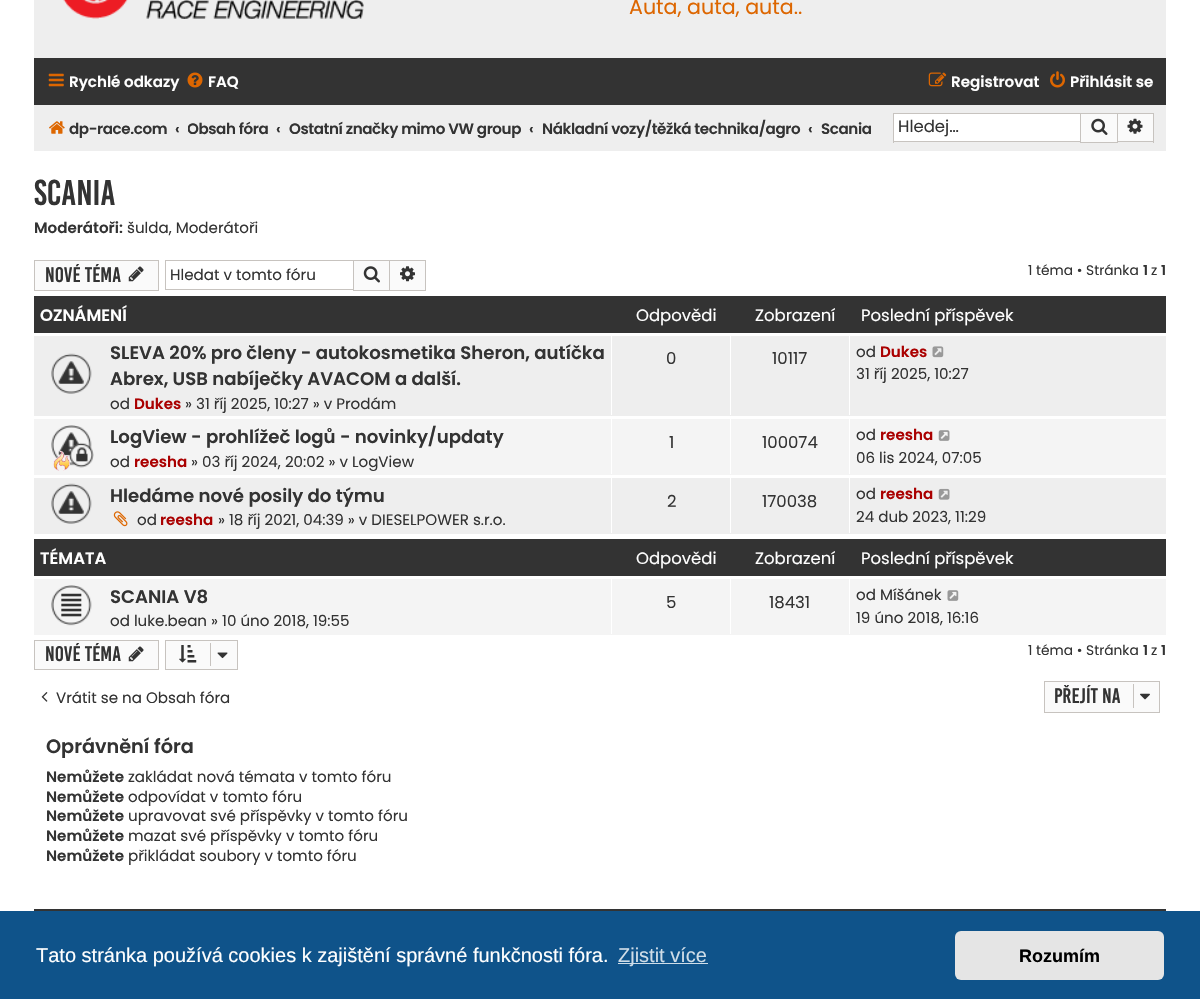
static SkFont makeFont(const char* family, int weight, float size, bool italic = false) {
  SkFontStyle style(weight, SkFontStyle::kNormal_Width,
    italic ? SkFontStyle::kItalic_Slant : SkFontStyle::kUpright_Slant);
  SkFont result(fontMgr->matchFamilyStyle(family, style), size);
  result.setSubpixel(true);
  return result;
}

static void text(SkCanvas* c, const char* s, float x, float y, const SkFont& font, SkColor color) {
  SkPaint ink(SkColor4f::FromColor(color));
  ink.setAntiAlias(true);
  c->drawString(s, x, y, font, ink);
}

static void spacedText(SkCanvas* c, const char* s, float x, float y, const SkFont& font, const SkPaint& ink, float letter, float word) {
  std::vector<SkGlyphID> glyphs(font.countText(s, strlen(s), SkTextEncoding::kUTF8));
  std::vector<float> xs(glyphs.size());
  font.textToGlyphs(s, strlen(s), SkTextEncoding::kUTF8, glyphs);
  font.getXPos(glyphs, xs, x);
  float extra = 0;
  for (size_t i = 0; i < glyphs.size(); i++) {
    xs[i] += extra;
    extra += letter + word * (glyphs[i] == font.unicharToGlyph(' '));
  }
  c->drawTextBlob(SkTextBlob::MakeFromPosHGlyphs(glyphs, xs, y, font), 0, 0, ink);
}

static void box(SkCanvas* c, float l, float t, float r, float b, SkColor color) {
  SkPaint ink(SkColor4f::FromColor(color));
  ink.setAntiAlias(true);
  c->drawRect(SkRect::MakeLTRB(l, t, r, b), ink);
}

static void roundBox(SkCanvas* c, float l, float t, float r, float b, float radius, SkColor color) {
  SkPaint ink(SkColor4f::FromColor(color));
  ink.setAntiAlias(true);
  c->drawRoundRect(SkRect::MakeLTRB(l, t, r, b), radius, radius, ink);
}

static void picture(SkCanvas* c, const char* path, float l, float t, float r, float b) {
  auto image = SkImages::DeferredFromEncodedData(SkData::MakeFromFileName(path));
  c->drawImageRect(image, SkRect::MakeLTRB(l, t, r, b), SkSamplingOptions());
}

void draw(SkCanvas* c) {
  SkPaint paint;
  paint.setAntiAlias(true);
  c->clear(0xffffffff);
  box(c, 34, 0, 1166, 58, 0xffeeeeee);
  picture(c, "img_01.png", 63, 0, 364, 19);
  SkFont face1 = makeFont("Poppins", 400, 20.6f);
  text(c, "Auta, auta, auta..", 629, 14, face1, 0xffdd6600);
  box(c, 34, 58, 1166, 105, 0xff333333);
  picture(c, "img_02.png", 48, 73, 64, 87);
  SkFont face2 = makeFont("Poppins", 600, 15.1f);
  text(c, "Rychlé odkazy", 69, 87, face2, 0xffffffff);
  picture(c, "img_03.png", 187, 72, 203, 88);
  text(c, "FAQ", 208, 87, face2, 0xffffffff);
  picture(c, "img_04.png", 928, 72, 947, 87);
  text(c, "Registrovat", 951, 87, face2, 0xffffffff);
  picture(c, "img_05.png", 1050, 71, 1065, 88);
  text(c, "Přihlásit se", 1070, 87, face2, 0xffffffff);
  box(c, 34, 105, 1166, 151, 0xffeeeeee);
  picture(c, "img_06.png", 49, 121, 65, 134);
  paint.setColor(0xff333333);
  spacedText(c, "dp-race.com", 69, 134, face2, paint, -0.4f, 0);
  text(c, "‹", 175, 134, face2, 0xff333333);
  c->save();
  c->clipRect(SkRect::MakeLTRB(188, 113, 269, 145));
  spacedText(c, "Obsah fóra", 187, 134, face2, paint, -0.4f, 0);
  c->restore();
  text(c, "‹", 276, 134, face2, 0xff333333);
  c->save();
  c->clipRect(SkRect::MakeLTRB(289, 113, 521, 145));
  spacedText(c, "Ostatní značky mimo VW group", 289, 134, face2, paint, -0.4f, 0);
  c->restore();
  text(c, "‹", 529, 134, face2, 0xff333333);
  spacedText(c, "Nákladní vozy/těžká technika/agro", 542, 134, face2, paint, -0.4f, 0);
  text(c, "‹", 808, 134, face2, 0xff333333);
  spacedText(c, "Scania", 821, 134, face2, paint, -0.4f, 0);
  box(c, 894, 114, 1080, 141, 0xffffffff);
  box(c, 893, 113, 1080, 114, 0xffc7c3bf);
  box(c, 893, 141, 1080, 142, 0xffc7c3bf);
  box(c, 893, 113, 894, 143, 0xffc7c3bf);
  SkFont face3 = makeFont("Poppins", 400, 16.5f);
  text(c, "Hledej…", 898, 132, face3, 0xff333333);
  paint.setColor(0xfffafafa);
  c->drawRect(SkRect::MakeLTRB(1080.5f, 113.5f, 1117.5f, 142.5f), paint);
  paint.setStyle(SkPaint::kStroke_Style);
  paint.setStrokeWidth(1);
  paint.setColor(0xffc7c3bf);
  c->drawRect(SkRect::MakeLTRB(1080.5f, 113.5f, 1117.5f, 142.5f), paint);
  picture(c, "img_07.png", 1091, 118, 1108, 135);
  box(c, 1118, 114, 1153, 141, 0xfffafafa);
  box(c, 1118, 113, 1154, 114, 0xffc7c3bf);
  box(c, 1153, 113, 1154, 143, 0xffc7c3bf);
  box(c, 1118, 141, 1154, 142, 0xffc7c3bf);
  picture(c, "img_08.png", 1127, 118, 1143, 134);
  SkFont face4 = makeFont("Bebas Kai", 400, 27.5f);
  text(c, "Scania", 34, 205, face4, 0xff333333);
  text(c, "Moderátoři:", 34, 233, face2, 0xff333333);
  SkFont face5 = makeFont("Poppins", 400, 15.1f);
  text(c, "šulda, Moderátoři", 127, 233, face5, 0xff333333);
  paint.setStyle(SkPaint::kFill_Style);
  paint.setColor(0xfffafafa);
  c->drawRect(SkRect::MakeLTRB(34.5f, 260.5f, 158.5f, 290.5f), paint);
  paint.setStyle(SkPaint::kStroke_Style);
  paint.setColor(0xffc7c3bf);
  c->drawRect(SkRect::MakeLTRB(34.5f, 260.5f, 158.5f, 290.5f), paint);
  SkFont face6 = makeFont("Bebas Kai", 400, 16.25f);
  text(c, "Nové téma", 45, 282, face6, 0xff333333);
  picture(c, "img_09.png", 128, 266, 144, 282);
  box(c, 165, 260, 353, 261, 0xffc7c3bf);
  box(c, 165, 289, 353, 290, 0xffc7c3bf);
  box(c, 165, 260, 166, 290, 0xffc7c3bf);
  text(c, "Hledat v tomto fóru", 170, 280, face5, 0xff333333);
  paint.setStyle(SkPaint::kFill_Style);
  paint.setColor(0xfffafafa);
  c->drawRect(SkRect::MakeLTRB(353.5f, 260.5f, 389.5f, 290.5f), paint);
  paint.setStyle(SkPaint::kStroke_Style);
  paint.setColor(0xffc7c3bf);
  c->drawRect(SkRect::MakeLTRB(353.5f, 260.5f, 389.5f, 290.5f), paint);
  picture(c, "img_10.png", 363, 266, 380, 283);
  box(c, 390, 261, 425, 290, 0xfffafafa);
  box(c, 390, 260, 426, 261, 0xffc7c3bf);
  box(c, 425, 260, 426, 291, 0xffc7c3bf);
  box(c, 390, 290, 426, 291, 0xffc7c3bf);
  picture(c, "img_11.png", 400, 266, 415, 282);
  SkFont face7 = makeFont("Poppins", 400, 13.75f);
  text(c, "1 téma • Stránka", 1028, 275, face7, 0xff333333);
  SkFont face8 = makeFont("Poppins", 600, 13.75f);
  text(c, "1", 1143, 275, face8, 0xff333333);
  text(c, "z", 1151, 275, face7, 0xff333333);
  text(c, "1", 1161, 275, face8, 0xff333333);
  box(c, 34, 296, 1166, 333, 0xff333333);
  SkFont face9 = makeFont("Poppins", 600, 16.5f);
  text(c, "OZNÁMENÍ", 40, 321, face9, 0xffffffff);
  text(c, "Odpovědi", 636, 321, face3, 0xffffffff);
  text(c, "Zobrazení", 755, 321, face3, 0xffffffff);
  text(c, "Poslední příspěvek", 861, 321, face3, 0xffffffff);
  box(c, 34, 336, 1166, 416, 0xffeeeeee);
  picture(c, "img_12.png", 51, 353, 92, 394);
  SkFont face10 = makeFont("Poppins", 600, 18.15f);
  text(c, "SLEVA 20% pro členy - autokosmetika Sheron, autíčka", 110, 359, face10, 0xff333333);
  text(c, "Abrex, USB nabíječky AVACOM a další.", 110, 385, face10, 0xff333333);
  text(c, "od", 110, 409, face5, 0xff333333);
  text(c, "Dukes", 134, 409, face2, 0xffaa0000);
  text(c, "» 31 říj 2025, 10:27 » v Prodám", 185, 409, face5, 0xff333333);
  box(c, 611, 335, 612, 415, 0xffffffff);
  text(c, "0", 666, 364, face3, 0xff333333);
  box(c, 730, 335, 731, 415, 0xffffffff);
  text(c, "10117", 772, 364, face3, 0xff333333);
  box(c, 849, 335, 850, 415, 0xffffffff);
  text(c, "od", 856, 357, face5, 0xff333333);
  text(c, "Dukes", 880, 357, face2, 0xffaa0000);
  picture(c, "img_13.png", 932, 346, 944, 358);
  text(c, "31 říj 2025, 10:27", 856, 379, face5, 0xff333333);
  box(c, 34, 419, 1166, 475, 0xfff4f4f4);
  picture(c, "img_14.png", 51, 425, 94, 468);
  picture(c, "img_15.png", 53, 450, 70, 471);
  text(c, "LogView - prohlížeč logů - novinky/updaty", 110, 443, face10, 0xff333333);
  text(c, "od", 110, 467, face5, 0xff333333);
  text(c, "reesha", 134, 467, face2, 0xffaa0000);
  text(c, "» 03 říj 2024, 20:02 » v LogView", 191, 467, face5, 0xff333333);
  box(c, 611, 419, 612, 474, 0xffffffff);
  text(c, "1", 669, 448, face3, 0xff333333);
  box(c, 730, 419, 731, 474, 0xffffffff);
  text(c, "100074", 762, 448, face3, 0xff333333);
  box(c, 849, 419, 850, 474, 0xffffffff);
  text(c, "od", 856, 440, face5, 0xff333333);
  text(c, "reesha", 880, 440, face2, 0xffaa0000);
  picture(c, "img_16.png", 938, 430, 950, 441);
  text(c, "06 lis 2024, 07:05", 856, 463, face5, 0xff333333);
  box(c, 34, 478, 1166, 534, 0xffeeeeee);
  picture(c, "img_17.png", 51, 483, 92, 524);
  text(c, "Hledáme nové posily do týmu", 110, 502, face10, 0xff333333);
  picture(c, "img_18.png", 113, 511, 128, 527);
  text(c, "od", 137, 525, face5, 0xff333333);
  text(c, "reesha", 160, 525, face2, 0xffaa0000);
  text(c, "» 18 říj 2021, 04:39 » v DIESELPOWER s.r.o.", 218, 525, face5, 0xff333333);
  box(c, 611, 478, 612, 533, 0xffffffff);
  text(c, "2", 667, 507, face3, 0xff333333);
  box(c, 730, 478, 731, 533, 0xffffffff);
  text(c, "170038", 762, 507, face3, 0xff333333);
  box(c, 849, 478, 850, 533, 0xffffffff);
  text(c, "od", 856, 499, face5, 0xff333333);
  text(c, "reesha", 880, 499, face2, 0xffaa0000);
  picture(c, "img_19.png", 938, 488, 950, 500);
  text(c, "24 dub 2023, 11:29", 856, 522, face5, 0xff333333);
  box(c, 34, 539, 1166, 576, 0xff333333);
  text(c, "TÉMATA", 40, 564, face9, 0xffffffff);
  text(c, "Odpovědi", 636, 564, face3, 0xffffffff);
  text(c, "Zobrazení", 755, 564, face3, 0xffffffff);
  text(c, "Poslední příspěvek", 861, 564, face3, 0xffffffff);
  box(c, 34, 579, 1166, 635, 0xfff4f4f4);
  picture(c, "img_20.png", 51, 585, 92, 626);
  text(c, "SCANIA V8", 110, 603, face10, 0xff333333);
  text(c, "od luke.bean » 10 úno 2018, 19:55", 110, 626, face5, 0xff333333);
  box(c, 611, 579, 612, 634, 0xffffffff);
  text(c, "5", 666, 608, face3, 0xff333333);
  box(c, 730, 579, 731, 634, 0xffffffff);
  text(c, "18431", 769, 608, face3, 0xff333333);
  box(c, 849, 579, 850, 634, 0xffffffff);
  text(c, "od Míšánek", 856, 600, face5, 0xff333333);
  picture(c, "img_21.png", 947, 590, 959, 601);
  text(c, "19 úno 2018, 16:16", 856, 623, face5, 0xff333333);
  paint.setStyle(SkPaint::kFill_Style);
  paint.setColor(0xfffafafa);
  c->drawRect(SkRect::MakeLTRB(34.5f, 640.5f, 158.5f, 669.5f), paint);
  paint.setStyle(SkPaint::kStroke_Style);
  paint.setColor(0xffc7c3bf);
  c->drawRect(SkRect::MakeLTRB(34.5f, 640.5f, 158.5f, 669.5f), paint);
  text(c, "Nové téma", 45, 661, face6, 0xff333333);
  picture(c, "img_09.png", 128, 646, 144, 662);
  paint.setStyle(SkPaint::kFill_Style);
  paint.setColor(0xfffafafa);
  c->drawRect(SkRect::MakeLTRB(165.5f, 640.5f, 237.5f, 669.5f), paint);
  paint.setStyle(SkPaint::kStroke_Style);
  paint.setColor(0xffc7c3bf);
  c->drawRect(SkRect::MakeLTRB(165.5f, 640.5f, 237.5f, 669.5f), paint);
  picture(c, "img_22.png", 179, 645, 197, 663);
  box(c, 210, 643, 211, 666, 0xffc7c3bf);
  picture(c, "img_23.png", 217, 652, 228, 659);
  text(c, "1 téma • Stránka", 1028, 655, face7, 0xff333333);
  text(c, "1", 1143, 655, face8, 0xff333333);
  text(c, "z", 1151, 655, face7, 0xff333333);
  text(c, "1", 1161, 655, face8, 0xff333333);
  picture(c, "img_24.png", 41, 692, 48, 702);
  text(c, "Vrátit se na Obsah fóra", 56, 703, face5, 0xff333333);
  paint.setStyle(SkPaint::kFill_Style);
  paint.setColor(0xfffafafa);
  c->drawRect(SkRect::MakeLTRB(1044.5f, 681.5f, 1159.5f, 712.5f), paint);
  paint.setStyle(SkPaint::kStroke_Style);
  paint.setColor(0xffc7c3bf);
  c->drawRect(SkRect::MakeLTRB(1044.5f, 681.5f, 1159.5f, 712.5f), paint);
  text(c, "Přejít na", 1054, 703, face6, 0xff333333);
  box(c, 1133, 684, 1134, 708, 0xffc7c3bf);
  picture(c, "img_25.png", 1140, 693, 1150, 700);
  SkFont face11 = makeFont("Poppins", 600, 19.25f);
  text(c, "Oprávnění fóra", 46, 753, face11, 0xff333333);
  text(c, "Nemůžete", 46, 782, face2, 0xff333333);
  text(c, "zakládat nová témata v tomto fóru", 128, 782, face5, 0xff333333);
  text(c, "Nemůžete", 46, 802, face2, 0xff333333);
  text(c, "odpovídat v tomto fóru", 128, 802, face5, 0xff333333);
  text(c, "Nemůžete", 46, 821, face2, 0xff333333);
  text(c, "upravovat své příspěvky v tomto fóru", 128, 821, face5, 0xff333333);
  text(c, "Nemůžete", 46, 841, face2, 0xff333333);
  text(c, "mazat své příspěvky v tomto fóru", 128, 841, face5, 0xff333333);
  text(c, "Nemůžete", 46, 861, face2, 0xff333333);
  text(c, "přikládat soubory v tomto fóru", 128, 861, face5, 0xff333333);
  box(c, 34, 909, 1166, 911, 0xff333333);
  box(c, 0, 911, 1200, 999, 0xff0f538a);
  SkFont face12 = makeFont("Liberation Sans", 400, 20);
  text(c, "Tato stránka používá cookies k zajištění správné funkčnosti fóra.", 36, 962, face12, 0xffffffff);
  box(c, 618, 963, 708, 964, 0xffcfdde8);
  text(c, "Zjistit více", 618, 962, face12, 0xffcfdde8);
  roundBox(c, 955, 931, 1164, 980, 6, 0xffe5e5e5);
  SkFont face13 = makeFont("Liberation Sans", 700, 18);
  text(c, "Rozumím", 1019, 962, face13, 0xff000000);
}
